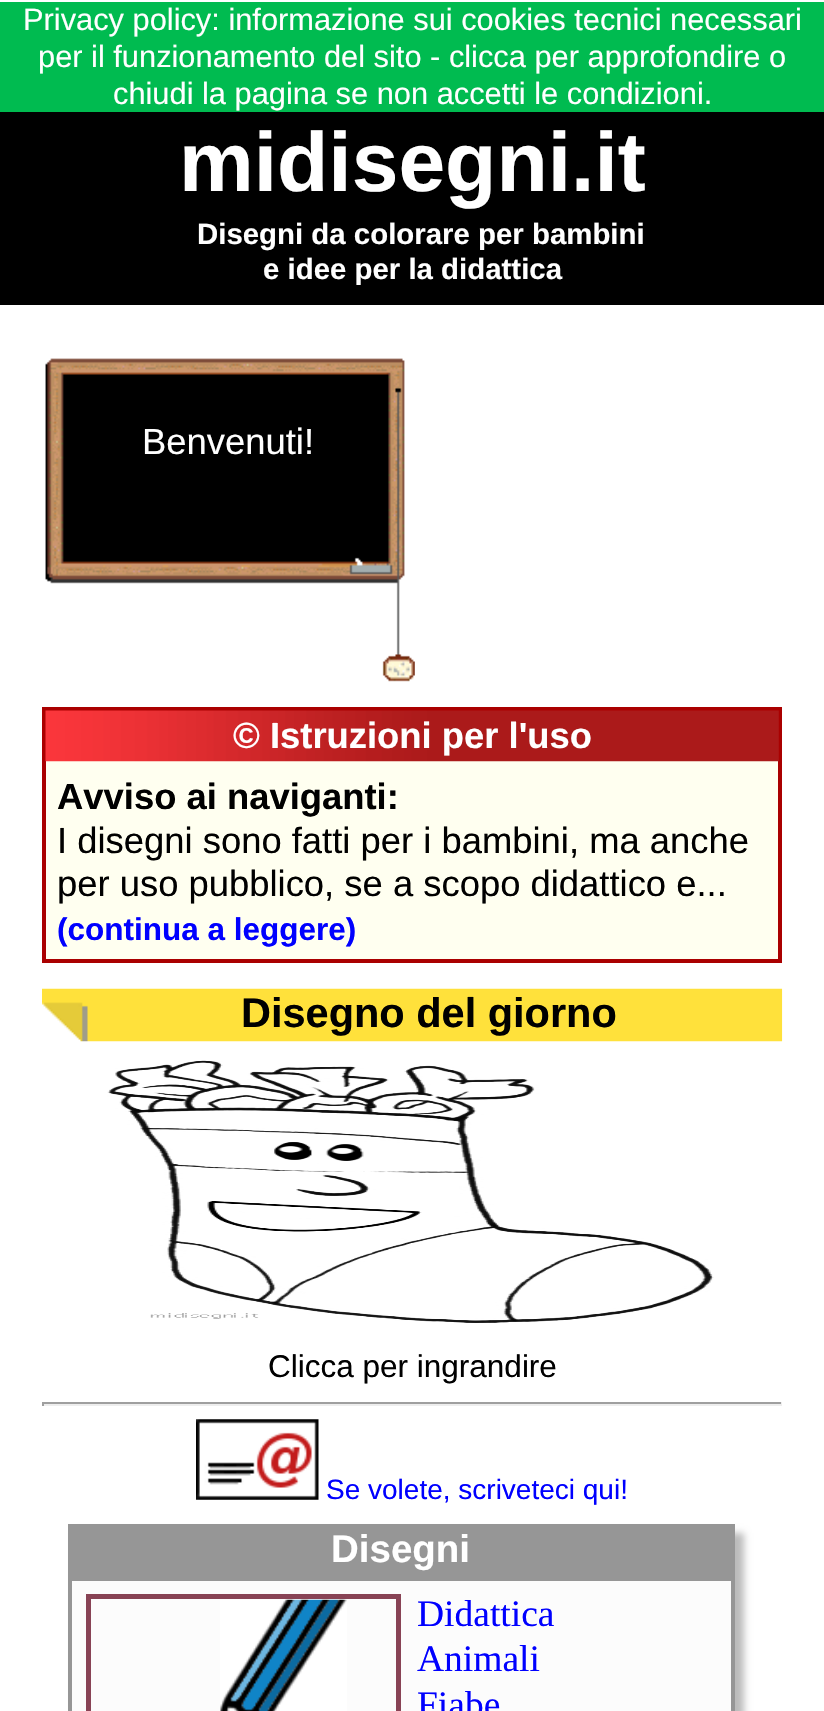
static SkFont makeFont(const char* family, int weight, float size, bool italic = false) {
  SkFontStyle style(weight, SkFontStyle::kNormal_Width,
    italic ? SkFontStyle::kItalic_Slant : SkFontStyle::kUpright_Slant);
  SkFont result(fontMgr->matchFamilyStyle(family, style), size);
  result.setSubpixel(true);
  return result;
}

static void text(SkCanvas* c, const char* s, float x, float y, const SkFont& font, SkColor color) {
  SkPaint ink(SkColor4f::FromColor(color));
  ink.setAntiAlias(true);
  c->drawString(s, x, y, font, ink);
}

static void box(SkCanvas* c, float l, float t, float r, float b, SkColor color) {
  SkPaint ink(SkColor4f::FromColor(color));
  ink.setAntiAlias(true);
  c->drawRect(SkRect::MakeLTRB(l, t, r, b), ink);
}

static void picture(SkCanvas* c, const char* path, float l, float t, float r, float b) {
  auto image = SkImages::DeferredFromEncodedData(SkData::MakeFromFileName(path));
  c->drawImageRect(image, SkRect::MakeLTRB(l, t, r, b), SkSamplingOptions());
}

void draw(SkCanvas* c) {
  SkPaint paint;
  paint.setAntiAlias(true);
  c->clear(0xffffffff);
  box(c, 0, 2, 824, 112, 0xff00bb50);
  SkFont face1 = makeFont("Liberation Sans", 400, 30.8f);
  text(c, "Privacy policy: informazione sui cookies tecnici necessari", 23, 30, face1, 0xffffffff);
  text(c, "per il funzionamento del sito - clicca per approfondire o", 38, 67, face1, 0xffffffff);
  text(c, "chiudi la pagina se non accetti le condizioni.", 113, 104, face1, 0xffffffff);
  box(c, 0, 112, 824, 305, 0xff000000);
  SkFont face2 = makeFont("Liberation Sans", 700, 84);
  text(c, "midisegni.it", 179, 191, face2, 0xffffffff);
  SkFont face3 = makeFont("Liberation Sans", 700, 29.4f);
  text(c, "Disegni da colorare per bambini", 197, 244, face3, 0xffffffff);
  text(c, "e idee per la didattica", 263, 279, face3, 0xffffffff);
  picture(c, "img_01.png", 45, 358, 415, 682);
  SkFont face4 = makeFont("Liberation Sans", 400, 36.4f);
  text(c, "Benvenuti!", 142, 454, face4, 0xffffffff);
  box(c, 46, 761, 778, 959, 0xfffffff0);
  paint.setStyle(SkPaint::kStroke_Style);
  paint.setStrokeWidth(4);
  paint.setColor(0xffaa0000);
  c->drawRect(SkRect::MakeLTRB(44, 709, 780, 961), paint);
  picture(c, "img_02.png", 45, 710, 779, 762);
  SkFont face5 = makeFont("Liberation Sans", 700, 36.4f);
  text(c, "© Istruzioni per l'uso", 233, 748, face5, 0xffffffff);
  text(c, "Avviso ai naviganti:", 57, 809, face5, 0xff000000);
  text(c, "I disegni sono fatti per i bambini, ma anche", 57, 853, face4, 0xff000000);
  text(c, "per uso pubblico, se a scopo didattico e...", 57, 896, face4, 0xff000000);
  SkFont face6 = makeFont("Liberation Sans", 700, 31.5f);
  text(c, "(continua a leggere)", 57, 940, face6, 0xff0000ff);
  picture(c, "img_03.png", 42, 988, 783, 1042);
  SkFont face7 = makeFont("Liberation Sans", 700, 41.5f);
  text(c, "Disegno del giorno", 241, 1027, face7, 0xff000000);
  picture(c, "img_04.png", 107, 1060, 714, 1323);
  SkFont face8 = makeFont("Liberation Sans", 400, 31.5f);
  text(c, "Clicca per ingrandire", 268, 1377, face8, 0xff000000);
  box(c, 42, 1402, 782, 1404, 0xff9f9f9f);
  box(c, 781, 1402, 782, 1406, 0xffeeeeee);
  box(c, 42, 1404, 782, 1406, 0xffeeeeee);
  box(c, 42, 1402, 44, 1406, 0xff9f9f9f);
  picture(c, "img_05.png", 196, 1419, 319, 1500);
  SkFont face9 = makeFont("Liberation Sans", 400, 28);
  text(c, "Se volete, scriveteci qui!", 326, 1499, face9, 0xff0000ff);
  paint.setStyle(SkPaint::kFill_Style);
  paint.setColor(0xffbbbbbb);
  paint.setMaskFilter(SkMaskFilter::MakeBlur(kNormal_SkBlurStyle, 3.5f));
  c->drawRect(SkRect::MakeLTRB(77, 1533, 744, 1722), paint);
  paint.setMaskFilter(nullptr);
  box(c, 68, 1524, 735, 1577, 0xff969696);
  SkFont face10 = makeFont("Liberation Sans", 700, 38.5f);
  text(c, "Disegni", 331, 1562, face10, 0xffffffff);
  paint.setColor(0xfffcfcfc);
  c->drawRect(SkRect::MakeLTRB(70, 1579, 733, 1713), paint);
  paint.setStyle(SkPaint::kStroke_Style);
  paint.setColor(0xff969696);
  c->drawRect(SkRect::MakeLTRB(70, 1579, 733, 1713), paint);
  paint.setStrokeWidth(5);
  paint.setColor(0xff884355);
  c->drawRect(SkRect::MakeLTRB(88.5f, 1596.5f, 398.5f, 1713.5f), paint);
  picture(c, "img_06.png", 220, 1599, 347, 1711);
  SkFont face11 = makeFont("Liberation Serif", 400, 37.5f);
  text(c, "Didattica", 417, 1626, face11, 0xff0000ff);
  text(c, "Animali", 417, 1671, face11, 0xff0000ff);
  text(c, "Fiabe", 417, 1717, face11, 0xff0000ff);
}
